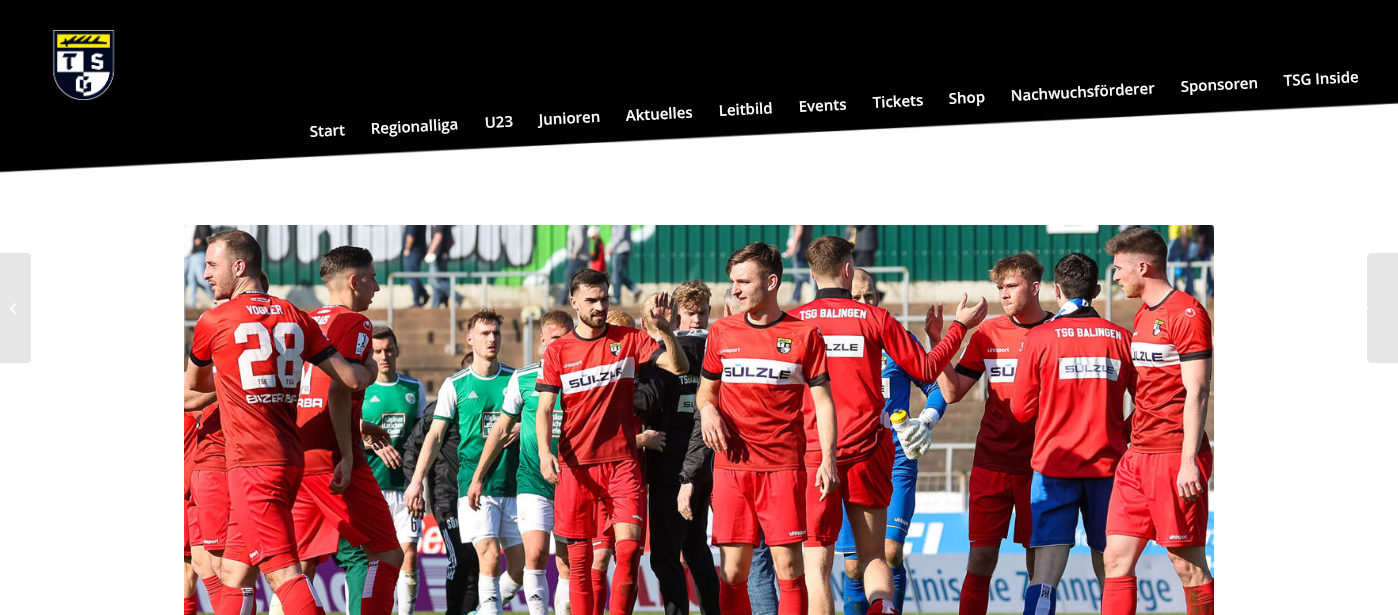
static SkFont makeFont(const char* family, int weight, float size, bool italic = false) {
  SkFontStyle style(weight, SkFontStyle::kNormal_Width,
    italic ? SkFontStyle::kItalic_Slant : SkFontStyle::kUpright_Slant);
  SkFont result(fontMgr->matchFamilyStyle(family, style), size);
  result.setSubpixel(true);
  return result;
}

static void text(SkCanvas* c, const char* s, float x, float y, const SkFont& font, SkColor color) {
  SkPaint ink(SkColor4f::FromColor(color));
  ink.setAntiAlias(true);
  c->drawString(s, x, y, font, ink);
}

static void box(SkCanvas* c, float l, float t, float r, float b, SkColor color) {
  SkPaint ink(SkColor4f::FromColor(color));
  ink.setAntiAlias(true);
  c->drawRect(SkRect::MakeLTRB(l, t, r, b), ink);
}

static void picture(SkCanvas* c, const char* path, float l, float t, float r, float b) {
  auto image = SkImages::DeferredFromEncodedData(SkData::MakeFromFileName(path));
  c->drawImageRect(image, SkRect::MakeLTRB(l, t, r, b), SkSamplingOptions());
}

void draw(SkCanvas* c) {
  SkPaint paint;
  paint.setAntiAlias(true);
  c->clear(0xffffffff);
  box(c, 0, 0, 1398, 100, 0xff000000);
  picture(c, "img_01.png", 52, 30, 115, 100);
  picture(c, "img_02.png", 0, 100, 1398, 173);
  SkFont face1 = makeFont("Open Sans", 600, 15);
  c->save();
  c->rotate(-3, 310, 137);
  text(c, "Start", 310, 137, face1, 0xffffffff);
  c->restore();
  c->save();
  c->rotate(-3, 371, 134);
  text(c, "Regionalliga", 371, 134, face1, 0xffffffff);
  c->restore();
  c->save();
  c->rotate(-3, 485, 128);
  text(c, "U23", 485, 128, face1, 0xffffffff);
  c->restore();
  c->save();
  c->rotate(-3, 539, 125);
  text(c, "Junioren", 539, 125, face1, 0xffffffff);
  c->restore();
  c->save();
  c->rotate(-3, 626, 121);
  text(c, "Aktuelles", 626, 121, face1, 0xffffffff);
  c->restore();
  c->save();
  c->rotate(-3, 719, 116);
  text(c, "Leitbild", 719, 116, face1, 0xffffffff);
  c->restore();
  c->save();
  c->rotate(-3, 799, 112);
  text(c, "Events", 799, 112, face1, 0xffffffff);
  c->restore();
  c->save();
  c->rotate(-3, 873, 108);
  text(c, "Tickets", 873, 108, face1, 0xffffffff);
  c->restore();
  c->save();
  c->rotate(-3, 949, 104);
  text(c, "Shop", 949, 104, face1, 0xffffffff);
  c->restore();
  c->save();
  c->rotate(-3, 1011, 101);
  text(c, "Nachwuchsförderer", 1011, 101, face1, 0xffffffff);
  c->restore();
  c->save();
  c->rotate(-3, 1181, 92);
  text(c, "Sponsoren", 1181, 92, face1, 0xffffffff);
  c->restore();
  c->save();
  c->rotate(-3, 1284, 86);
  text(c, "TSG Inside", 1284, 86, face1, 0xffffffff);
  c->restore();
  picture(c, "img_03.png", 184, 225, 1214, 615);
  paint.setColor(0xffe6e6e6);
  c->drawPath(SkPathBuilder().moveTo(0, 253).lineTo(27, 253).cubicTo(29, 253, 31, 255, 31, 257).lineTo(31, 359).cubicTo(31, 361, 29, 363, 27, 363).lineTo(0, 363).close().detach(), paint);
  picture(c, "img_04.png", 10, 303, 17, 314);
  c->drawPath(SkPathBuilder().moveTo(1371, 253).lineTo(1398, 253).lineTo(1398, 363).lineTo(1371, 363).cubicTo(1369, 363, 1367, 361, 1367, 359).lineTo(1367, 257).cubicTo(1367, 255, 1369, 253, 1371, 253).close().detach(), paint);
  picture(c, "img_05.png", 1367, 307, 1369, 310);
}
